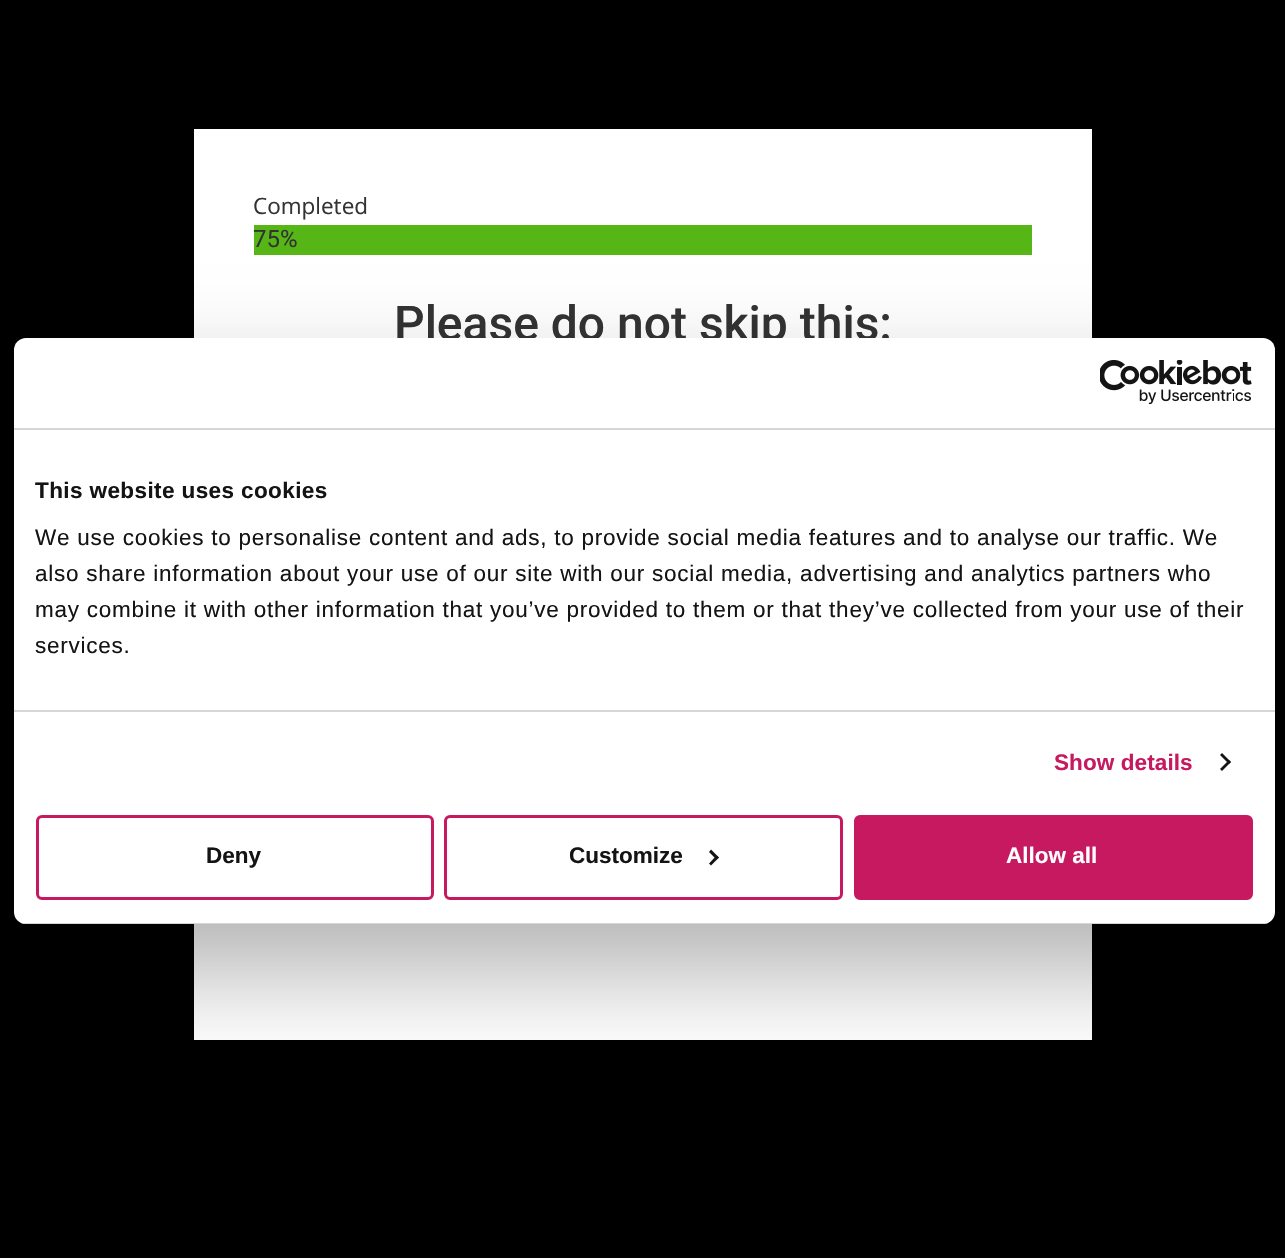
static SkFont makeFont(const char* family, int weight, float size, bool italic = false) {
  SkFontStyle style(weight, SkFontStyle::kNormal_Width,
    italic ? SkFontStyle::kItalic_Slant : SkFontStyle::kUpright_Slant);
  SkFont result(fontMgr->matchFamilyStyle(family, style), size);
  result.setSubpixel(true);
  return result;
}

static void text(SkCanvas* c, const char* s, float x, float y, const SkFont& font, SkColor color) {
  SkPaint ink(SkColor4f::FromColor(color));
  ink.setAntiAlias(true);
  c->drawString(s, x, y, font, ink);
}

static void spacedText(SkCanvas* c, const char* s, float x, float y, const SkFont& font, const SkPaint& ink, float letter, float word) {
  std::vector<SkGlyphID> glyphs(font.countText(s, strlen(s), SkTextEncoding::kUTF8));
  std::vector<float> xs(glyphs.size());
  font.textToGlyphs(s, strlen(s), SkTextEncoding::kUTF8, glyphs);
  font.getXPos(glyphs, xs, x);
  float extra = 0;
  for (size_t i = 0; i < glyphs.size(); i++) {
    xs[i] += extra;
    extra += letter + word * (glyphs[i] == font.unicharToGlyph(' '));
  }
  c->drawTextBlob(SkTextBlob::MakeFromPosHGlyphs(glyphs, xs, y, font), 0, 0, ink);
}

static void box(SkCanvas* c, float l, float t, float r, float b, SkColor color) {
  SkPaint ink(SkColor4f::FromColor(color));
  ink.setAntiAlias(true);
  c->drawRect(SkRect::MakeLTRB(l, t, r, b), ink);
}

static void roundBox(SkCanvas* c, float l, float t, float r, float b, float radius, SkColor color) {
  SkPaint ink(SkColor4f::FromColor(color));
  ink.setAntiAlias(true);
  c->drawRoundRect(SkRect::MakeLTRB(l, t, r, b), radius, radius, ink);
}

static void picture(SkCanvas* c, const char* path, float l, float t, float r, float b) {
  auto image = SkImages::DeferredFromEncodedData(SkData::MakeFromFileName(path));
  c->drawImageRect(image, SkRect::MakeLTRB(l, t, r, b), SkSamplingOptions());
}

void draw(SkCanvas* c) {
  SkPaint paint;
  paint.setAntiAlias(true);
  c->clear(0xff000000);
  box(c, 194, 129, 1092, 1040, 0xffffffff);
  SkFont face1 = makeFont("Open Sans", 400, 22.5f);
  text(c, "Completed", 253, 214, face1, 0xff333333);
  box(c, 254, 225, 1032, 255, 0xff56b616);
  SkFont face2 = makeFont("Roboto", 400, 24);
  text(c, "75%", 253, 247, face2, 0xff333333);
  SkFont face3 = makeFont("Roboto", 500, 48);
  text(c, "Please do not skip this:", 394, 340, face3, 0xff333333);
  paint.setColor(0x4d000000);
  paint.setMaskFilter(SkMaskFilter::MakeBlur(kNormal_SkBlurStyle, 51));
  c->drawRoundRect(SkRect::MakeLTRB(14, 386, 1275, 972), 12, 12, paint);
  paint.setMaskFilter(nullptr);
  roundBox(c, 14, 338, 1275, 924, 12, 0xffffffff);
  box(c, 14, 428, 1275, 430, 0xffd6d6d6);
  picture(c, "img_01.png", 1100, 360, 1252, 405);
  box(c, 14, 710, 1275, 712, 0xffd6d6d6);
  SkFont face4 = makeFont("Liberation Sans", 700, 22.5f);
  paint.setColor(0xff141414);
  spacedText(c, "This website uses cookies", 35, 498, face4, paint, 0.4f, 0);
  SkFont face5 = makeFont("Liberation Sans", 400, 22.5f);
  spacedText(c, "We use cookies to personalise content and ads, to provide social media features and to analyse our traffic. We", 35, 545, face5, paint, 0.75f, 0);
  spacedText(c, "also share information about your use of our site with our social media, advertising and analytics partners who", 35, 581, face5, paint, 0.75f, 0);
  spacedText(c, "may combine it with other information that you’ve provided to them or that they’ve collected from your use of their", 35, 617, face5, paint, 0.75f, 0);
  spacedText(c, "services.", 35, 653, face5, paint, 0.75f, 0);
  paint.setColor(0xffc61960);
  spacedText(c, "Show details", 1054, 770, face4, paint, 0.1f, 0);
  paint.setColor(0xff141414);
  c->drawPath(SkPathBuilder().moveTo(1222, 753).lineTo(1231, 762).lineTo(1229, 764).lineTo(1220, 755).close().detach(), paint);
  c->drawPath(SkPathBuilder().moveTo(1229, 760).lineTo(1231, 762).lineTo(1222, 771).lineTo(1220, 769).close().detach(), paint);
  c->save();
  c->clipPath(SkPathBuilder().moveTo(26, 338).lineTo(1263, 338).cubicTo(1269.5f, 338, 1275, 343.5f, 1275, 350).lineTo(1275, 912).cubicTo(1275, 918.5f, 1269.5f, 924, 1263, 924).lineTo(26, 924).cubicTo(19.5f, 924, 14, 918.5f, 14, 912).lineTo(14, 350).cubicTo(14, 343.5f, 19.5f, 338, 26, 338).close().detach(), true);
  box(c, 14, 923, 1275, 924, 0xffd6d6d6);
  c->restore();
  paint.setStyle(SkPaint::kStroke_Style);
  paint.setStrokeWidth(3);
  paint.setColor(0xffc61960);
  c->drawRoundRect(SkRect::MakeLTRB(37.5f, 816.5f, 432.5f, 898.5f), 4.5f, 4.5f, paint);
  text(c, "Deny", 206, 863, face4, 0xff141414);
  c->drawRoundRect(SkRect::MakeLTRB(445.5f, 816.5f, 841.5f, 898.5f), 4.5f, 4.5f, paint);
  text(c, "Customize", 569, 863, face4, 0xff141414);
  paint.setStyle(SkPaint::kFill_Style);
  paint.setColor(0xff141414);
  c->drawPath(SkPathBuilder().moveTo(711, 849.5f).lineTo(719, 857.5f).lineTo(716.5f, 859.5f).lineTo(709, 852).close().detach(), paint);
  c->drawPath(SkPathBuilder().moveTo(716.5f, 855.5f).lineTo(719, 857.5f).lineTo(711, 865.5f).lineTo(709, 863.5f).close().detach(), paint);
  paint.setColor(0xffc61960);
  c->drawRoundRect(SkRect::MakeLTRB(855.5f, 816.5f, 1251.5f, 898.5f), 4.5f, 4.5f, paint);
  paint.setStyle(SkPaint::kStroke_Style);
  c->drawRoundRect(SkRect::MakeLTRB(855.5f, 816.5f, 1251.5f, 898.5f), 4.5f, 4.5f, paint);
  text(c, "Allow all", 1006, 863, face4, 0xffffffff);
}
